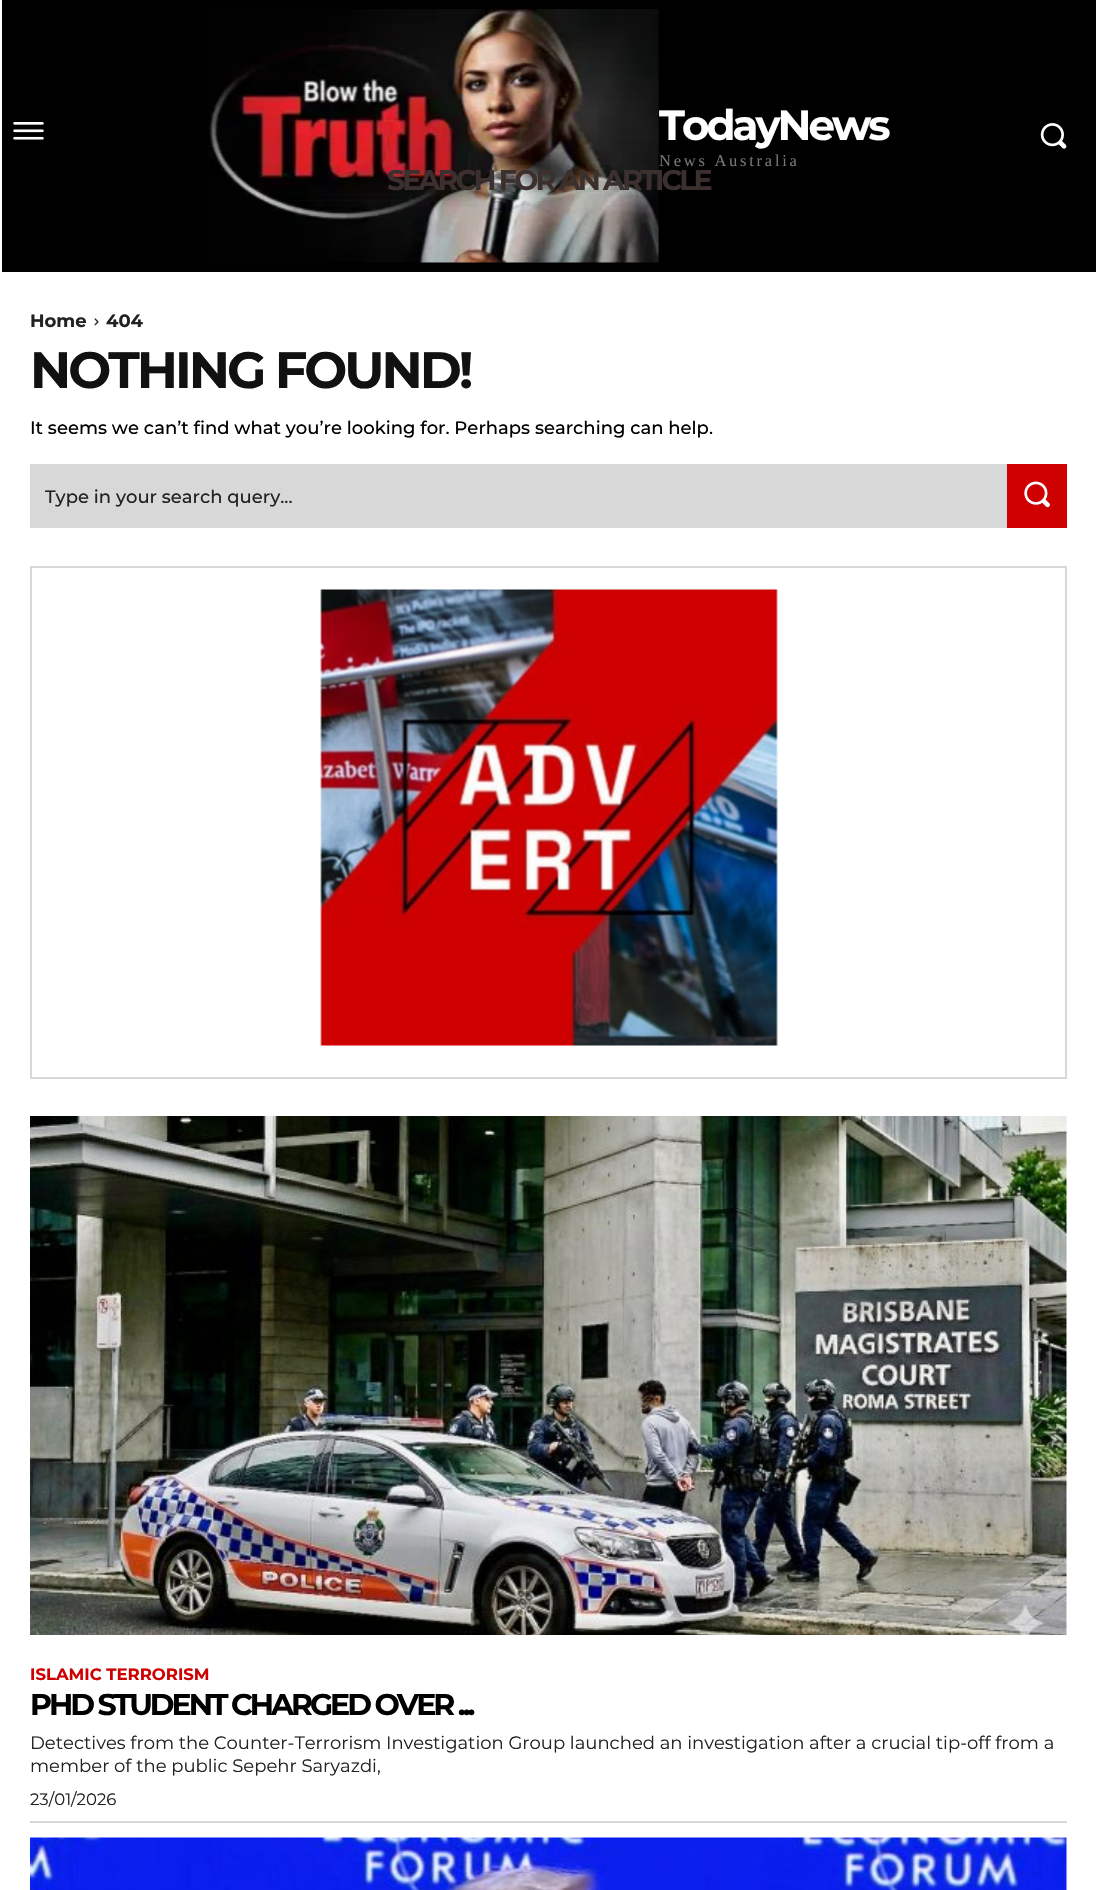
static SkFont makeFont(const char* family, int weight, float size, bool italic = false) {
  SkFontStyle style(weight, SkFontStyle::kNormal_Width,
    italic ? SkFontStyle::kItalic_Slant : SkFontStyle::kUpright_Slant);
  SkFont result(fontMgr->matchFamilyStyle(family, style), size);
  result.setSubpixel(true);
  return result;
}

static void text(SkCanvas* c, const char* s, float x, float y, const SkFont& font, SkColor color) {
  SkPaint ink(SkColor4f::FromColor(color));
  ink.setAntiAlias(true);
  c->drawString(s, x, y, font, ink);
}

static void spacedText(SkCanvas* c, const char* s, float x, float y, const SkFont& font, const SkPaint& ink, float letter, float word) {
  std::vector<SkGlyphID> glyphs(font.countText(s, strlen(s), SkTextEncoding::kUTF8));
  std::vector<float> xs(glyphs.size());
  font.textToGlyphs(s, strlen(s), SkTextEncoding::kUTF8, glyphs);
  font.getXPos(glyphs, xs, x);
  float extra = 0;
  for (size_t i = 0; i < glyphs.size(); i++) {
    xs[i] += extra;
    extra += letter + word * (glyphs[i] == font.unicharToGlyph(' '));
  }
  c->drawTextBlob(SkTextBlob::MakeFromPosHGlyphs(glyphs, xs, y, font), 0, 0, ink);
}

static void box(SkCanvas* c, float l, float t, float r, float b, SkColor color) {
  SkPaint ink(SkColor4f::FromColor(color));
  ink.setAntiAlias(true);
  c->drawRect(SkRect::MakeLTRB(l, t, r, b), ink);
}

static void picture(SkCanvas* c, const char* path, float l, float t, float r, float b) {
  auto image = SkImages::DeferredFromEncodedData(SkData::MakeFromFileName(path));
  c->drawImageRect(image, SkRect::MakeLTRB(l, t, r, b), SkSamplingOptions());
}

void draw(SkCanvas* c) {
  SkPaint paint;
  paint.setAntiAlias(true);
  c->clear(0xffffffff);
  box(c, 2, 0, 1096, 272, 0xff000000);
  picture(c, "img_01.png", 13, 122, 44, 140);
  picture(c, "img_02.png", 208, 9, 659, 263);
  SkFont face1 = makeFont("Montserrat", 700, 42);
  paint.setColor(0xffffffff);
  spacedText(c, "TodayNews", 659, 140, face1, paint, -3, 0);
  SkFont face2 = makeFont("Liberation Serif", 400, 16.5f);
  paint.setColor(0xff767676);
  spacedText(c, "News Australia", 659, 166, face2, paint, 2.75f, 0);
  picture(c, "img_03.png", 1040, 123, 1067, 149);
  SkFont face3 = makeFont("Montserrat", 700, 18);
  text(c, "Home", 30, 327, face3, 0xff222222);
  picture(c, "img_04.png", 94, 318, 99, 326);
  text(c, "404", 106, 327, face3, 0xff222222);
  SkFont face4 = makeFont("Montserrat", 700, 51);
  paint.setColor(0xff111111);
  spacedText(c, "NOTHING FOUND!", 30, 388, face4, paint, -3, 0);
  SkFont face5 = makeFont("Montserrat", 500, 18);
  text(c, "It seems we can’t find what you’re looking for. Perhaps searching can help.", 30, 434, face5, 0xff000000);
  box(c, 30, 464, 1007, 528, 0xffd8d8d8);
  text(c, "Type in your search query...", 45, 503, face5, 0xff222222);
  box(c, 1007, 464, 1067, 528, 0xffce0000);
  picture(c, "img_05.png", 1024, 481, 1050, 508);
  paint.setStyle(SkPaint::kStroke_Style);
  paint.setStrokeWidth(2);
  paint.setColor(0xffd8d8d8);
  c->drawRect(SkRect::MakeLTRB(31, 567, 1066, 1078), paint);
  picture(c, "img_06.png", 320, 589, 778, 1046);
  picture(c, "img_07.png", 30, 1116, 1067, 1635);
  SkFont face6 = makeFont("Montserrat", 700, 16.5f);
  text(c, "ISLAMIC TERRORISM", 30, 1680, face6, 0xffce0000);
  SkFont face7 = makeFont("Montserrat", 700, 30);
  paint.setStyle(SkPaint::kFill_Style);
  paint.setColor(0xff000000);
  spacedText(c, "PHD STUDENT CHARGED OVER ...", 30, 1715, face7, paint, -3, 0);
  SkFont face8 = makeFont("Montserrat", 400, 18);
  text(c, "Detectives from the Counter-Terrorism Investigation Group launched an investigation after a crucial tip-off from a", 30, 1749, face8, 0xff222222);
  text(c, "member of the public Sepehr Saryazdi,", 30, 1772, face8, 0xff222222);
  SkFont face9 = makeFont("Montserrat", 400, 16.5f);
  text(c, "23/01/2026", 30, 1805, face9, 0xff222222);
  box(c, 30, 1821, 1067, 1823, 0xffd8d8d8);
  picture(c, "img_08.png", 30, 1837, 1067, 1890);
  SkFont face10 = makeFont("Montserrat", 700, 28.5f);
  paint.setColor(0xff3c302f);
  spacedText(c, "SEARCH FOR AN ARTICLE", 387, 190, face10, paint, -2.85f, 0);
}
